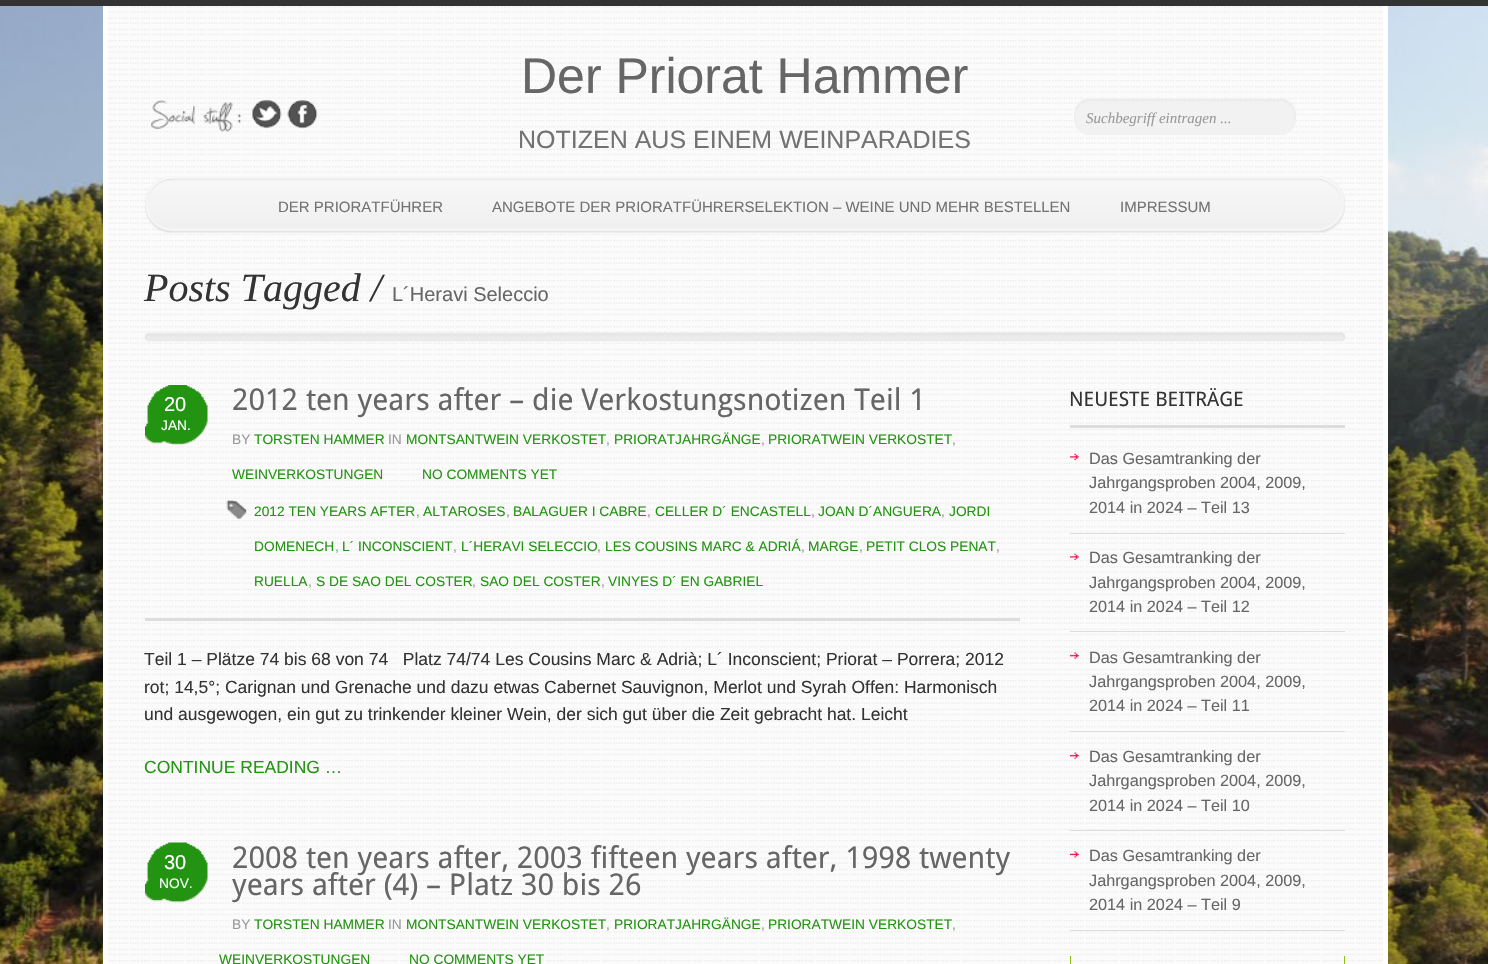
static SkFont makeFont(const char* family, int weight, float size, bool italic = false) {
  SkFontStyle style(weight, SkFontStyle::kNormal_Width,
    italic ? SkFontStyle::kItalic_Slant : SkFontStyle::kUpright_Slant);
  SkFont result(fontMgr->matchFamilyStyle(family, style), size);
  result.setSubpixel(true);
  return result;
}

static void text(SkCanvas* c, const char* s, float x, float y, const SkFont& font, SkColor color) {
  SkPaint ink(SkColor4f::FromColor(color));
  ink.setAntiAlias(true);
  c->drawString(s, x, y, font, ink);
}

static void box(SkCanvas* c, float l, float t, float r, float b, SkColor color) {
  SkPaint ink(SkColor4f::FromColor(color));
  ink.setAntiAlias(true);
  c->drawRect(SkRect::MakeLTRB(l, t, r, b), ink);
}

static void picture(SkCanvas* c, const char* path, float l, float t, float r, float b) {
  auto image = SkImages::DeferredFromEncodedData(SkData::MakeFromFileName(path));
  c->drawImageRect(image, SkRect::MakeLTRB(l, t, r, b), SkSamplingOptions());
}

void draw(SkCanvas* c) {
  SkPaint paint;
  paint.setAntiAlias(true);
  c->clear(0xffffffff);
  picture(c, "img_01.png", 0, 6, 1488, 964);
  box(c, 1383, 0, 1388, 964, 0xffffffff);
  box(c, 103, 0, 108, 964, 0xffffffff);
  box(c, 0, 0, 1488, 6, 0xff333333);
  box(c, 108, 6, 1383, 964, 0xfffbfbfb);
  picture(c, "img_02.png", 108, 6, 1383, 962);
  SkFont face1 = makeFont("Liberation Sans", 400, 50);
  text(c, "Der Priorat Hammer", 521, 93, face1, 0xff666666);
  picture(c, "img_03.png", 151, 100, 242, 132);
  picture(c, "img_04.png", 252, 100, 282, 129);
  picture(c, "img_05.png", 287, 100, 318, 129);
  picture(c, "img_06.png", 1074, 99, 1296, 135);
  SkFont face2 = makeFont("Liberation Serif", 400, 15, true);
  text(c, "Suchbegriff eintragen ...", 1086, 123, face2, 0xff999999);
  SkFont face3 = makeFont("Liberation Sans", 400, 25);
  text(c, "NOTIZEN AUS EINEM WEINPARADIES", 518, 148, face3, 0xff727272);
  picture(c, "img_07.png", 145, 176, 1345, 233);
  SkFont face4 = makeFont("Liberation Sans", 400, 15);
  text(c, "DER PRIORATFÜHRER", 278, 212, face4, 0xff727272);
  text(c, "ANGEBOTE DER PRIORATFÜHRERSELEKTION – WEINE UND MEHR BESTELLEN", 492, 212, face4, 0xff727272);
  text(c, "IMPRESSUM", 1120, 212, face4, 0xff727272);
  SkFont face5 = makeFont("Liberation Serif", 400, 40, true);
  text(c, "Posts Tagged /", 144, 301, face5, 0xff333333);
  SkFont face6 = makeFont("Liberation Sans", 400, 20);
  text(c, "L´Heravi Seleccio", 392, 301, face6, 0xff666666);
  picture(c, "img_08.png", 145, 332, 1345, 342);
  box(c, 145, 618, 1020, 621, 0xffdddddd);
  picture(c, "img_09.png", 145, 385, 208, 445);
  text(c, "20", 164, 411, face6, 0xffffffff);
  SkFont face7 = makeFont("Liberation Sans", 400, 13.75f);
  text(c, "JAN.", 161, 430, face7, 0xffffffff);
  SkFont face8 = makeFont("Droid Sans", 400, 30);
  text(c, "2012 ten years after – die Verkostungsnotizen Teil 1", 232, 410, face8, 0xff666666);
  text(c, "BY", 232, 444, face7, 0xff999999);
  text(c, "TORSTEN HAMMER", 254, 444, face7, 0xff229412);
  text(c, "IN", 388, 444, face7, 0xff999999);
  text(c, "MONTSANTWEIN VERKOSTET", 406, 444, face7, 0xff229412);
  text(c, ",", 606, 444, face7, 0xff999999);
  text(c, "PRIORATJAHRGÄNGE", 614, 444, face7, 0xff229412);
  text(c, ",", 761, 444, face7, 0xff999999);
  text(c, "PRIORATWEIN VERKOSTET", 768, 444, face7, 0xff229412);
  text(c, ",", 952, 444, face7, 0xff999999);
  text(c, "WEINVERKOSTUNGEN", 232, 479, face7, 0xff229412);
  text(c, "NO COMMENTS YET", 422, 479, face7, 0xff229412);
  picture(c, "img_10.png", 226, 500, 247, 519);
  text(c, "2012 TEN YEARS AFTER", 254, 516, face7, 0xff229412);
  text(c, ",", 416, 516, face7, 0xff999999);
  text(c, "ALTAROSES", 423, 516, face7, 0xff229412);
  text(c, ",", 506, 516, face7, 0xff999999);
  text(c, "BALAGUER I CABRE", 513, 516, face7, 0xff229412);
  text(c, ",", 647, 516, face7, 0xff999999);
  text(c, "CELLER D´ ENCASTELL", 655, 516, face7, 0xff229412);
  text(c, ",", 811, 516, face7, 0xff999999);
  text(c, "JOAN D´ANGUERA", 818, 516, face7, 0xff229412);
  text(c, ",", 941, 516, face7, 0xff999999);
  text(c, "JORDI", 949, 516, face7, 0xff229412);
  text(c, "DOMENECH", 254, 551, face7, 0xff229412);
  text(c, ",", 335, 551, face7, 0xff999999);
  text(c, "L´ INCONSCIENT", 342, 551, face7, 0xff229412);
  text(c, ",", 453, 551, face7, 0xff999999);
  text(c, "L´HERAVI SELECCIO", 461, 551, face7, 0xff229412);
  text(c, ",", 597, 551, face7, 0xff999999);
  text(c, "LES COUSINS MARC & ADRIÁ", 605, 551, face7, 0xff229412);
  text(c, ",", 801, 551, face7, 0xff999999);
  text(c, "MARGE", 808, 551, face7, 0xff229412);
  text(c, ",", 859, 551, face7, 0xff999999);
  text(c, "PETIT CLOS PENAT", 866, 551, face7, 0xff229412);
  text(c, ",", 996, 551, face7, 0xff999999);
  text(c, "RUELLA", 254, 586, face7, 0xff229412);
  text(c, ",", 308, 586, face7, 0xff999999);
  text(c, "S DE SAO DEL COSTER", 316, 586, face7, 0xff229412);
  text(c, ",", 472, 586, face7, 0xff999999);
  text(c, "SAO DEL COSTER", 480, 586, face7, 0xff229412);
  text(c, ",", 601, 586, face7, 0xff999999);
  text(c, "VINYES D´ EN GABRIEL", 608, 586, face7, 0xff229412);
  SkFont face9 = makeFont("Liberation Sans", 400, 17.5f);
  text(c, "Teil 1 – Plätze 74 bis 68 von 74   Platz 74/74 Les Cousins Marc & Adrià; L´ Inconscient; Priorat – Porrera; 2012", 144, 665, face9, 0xff333333);
  text(c, "rot; 14,5°; Carignan und Grenache und dazu etwas Cabernet Sauvignon, Merlot und Syrah Offen: Harmonisch", 144, 693, face9, 0xff333333);
  text(c, "und ausgewogen, ein gut zu trinkender kleiner Wein, der sich gut über die Zeit gebracht hat. Leicht", 144, 720, face9, 0xff333333);
  text(c, "CONTINUE READING …", 144, 773, face9, 0xff229412);
  picture(c, "img_11.png", 145, 842, 208, 903);
  text(c, "30", 164, 869, face6, 0xffffffff);
  text(c, "NOV.", 159, 888, face7, 0xffffffff);
  text(c, "2008 ten years after, 2003 fifteen years after, 1998 twenty", 232, 868, face8, 0xff666666);
  text(c, "years after (4) – Platz 30 bis 26", 232, 895, face8, 0xff666666);
  text(c, "BY", 232, 929, face7, 0xff999999);
  text(c, "TORSTEN HAMMER", 254, 929, face7, 0xff229412);
  text(c, "IN", 388, 929, face7, 0xff999999);
  text(c, "MONTSANTWEIN VERKOSTET", 406, 929, face7, 0xff229412);
  text(c, ",", 606, 929, face7, 0xff999999);
  text(c, "PRIORATJAHRGÄNGE", 614, 929, face7, 0xff229412);
  text(c, ",", 761, 929, face7, 0xff999999);
  text(c, "PRIORATWEIN VERKOSTET", 768, 929, face7, 0xff229412);
  text(c, ",", 952, 929, face7, 0xff999999);
  text(c, "WEINVERKOSTUNGEN", 219, 964, face7, 0xff229412);
  text(c, "NO COMMENTS YET", 409, 964, face7, 0xff229412);
  box(c, 1070, 425, 1345, 428, 0xffdddddd);
  SkFont face10 = makeFont("Droid Sans", 400, 20);
  text(c, "NEUESTE BEITRÄGE", 1069, 406, face10, 0xff333333);
  picture(c, "img_12.png", 1070, 453, 1079, 460);
  box(c, 1070, 533, 1345, 534, 0xffdddddd);
  SkFont face11 = makeFont("Liberation Sans", 400, 16.25f);
  text(c, "Das Gesamtranking der", 1089, 464, face11, 0xff666666);
  text(c, "Jahrgangsproben 2004, 2009,", 1089, 488, face11, 0xff666666);
  text(c, "2014 in 2024 – Teil 13", 1089, 513, face11, 0xff666666);
  picture(c, "img_13.png", 1070, 553, 1079, 560);
  box(c, 1070, 631, 1345, 632, 0xffdddddd);
  text(c, "Das Gesamtranking der", 1089, 563, face11, 0xff666666);
  text(c, "Jahrgangsproben 2004, 2009,", 1089, 588, face11, 0xff666666);
  text(c, "2014 in 2024 – Teil 12", 1089, 612, face11, 0xff666666);
  picture(c, "img_14.png", 1070, 652, 1079, 659);
  box(c, 1070, 731, 1345, 732, 0xffdddddd);
  text(c, "Das Gesamtranking der", 1089, 663, face11, 0xff666666);
  text(c, "Jahrgangsproben 2004, 2009,", 1089, 687, face11, 0xff666666);
  text(c, "2014 in 2024 – Teil 11", 1089, 711, face11, 0xff666666);
  picture(c, "img_15.png", 1070, 752, 1079, 759);
  box(c, 1070, 830, 1345, 831, 0xffdddddd);
  text(c, "Das Gesamtranking der", 1089, 762, face11, 0xff666666);
  text(c, "Jahrgangsproben 2004, 2009,", 1089, 786, face11, 0xff666666);
  text(c, "2014 in 2024 – Teil 10", 1089, 811, face11, 0xff666666);
  picture(c, "img_16.png", 1070, 851, 1079, 858);
  box(c, 1070, 930, 1345, 931, 0xffdddddd);
  text(c, "Das Gesamtranking der", 1089, 861, face11, 0xff666666);
  text(c, "Jahrgangsproben 2004, 2009,", 1089, 886, face11, 0xff666666);
  text(c, "2014 in 2024 – Teil 9", 1089, 910, face11, 0xff666666);
  box(c, 1344, 956, 1345, 964, 0xff8ebf17);
  box(c, 1070, 956, 1071, 964, 0xff8ebf17);
}
